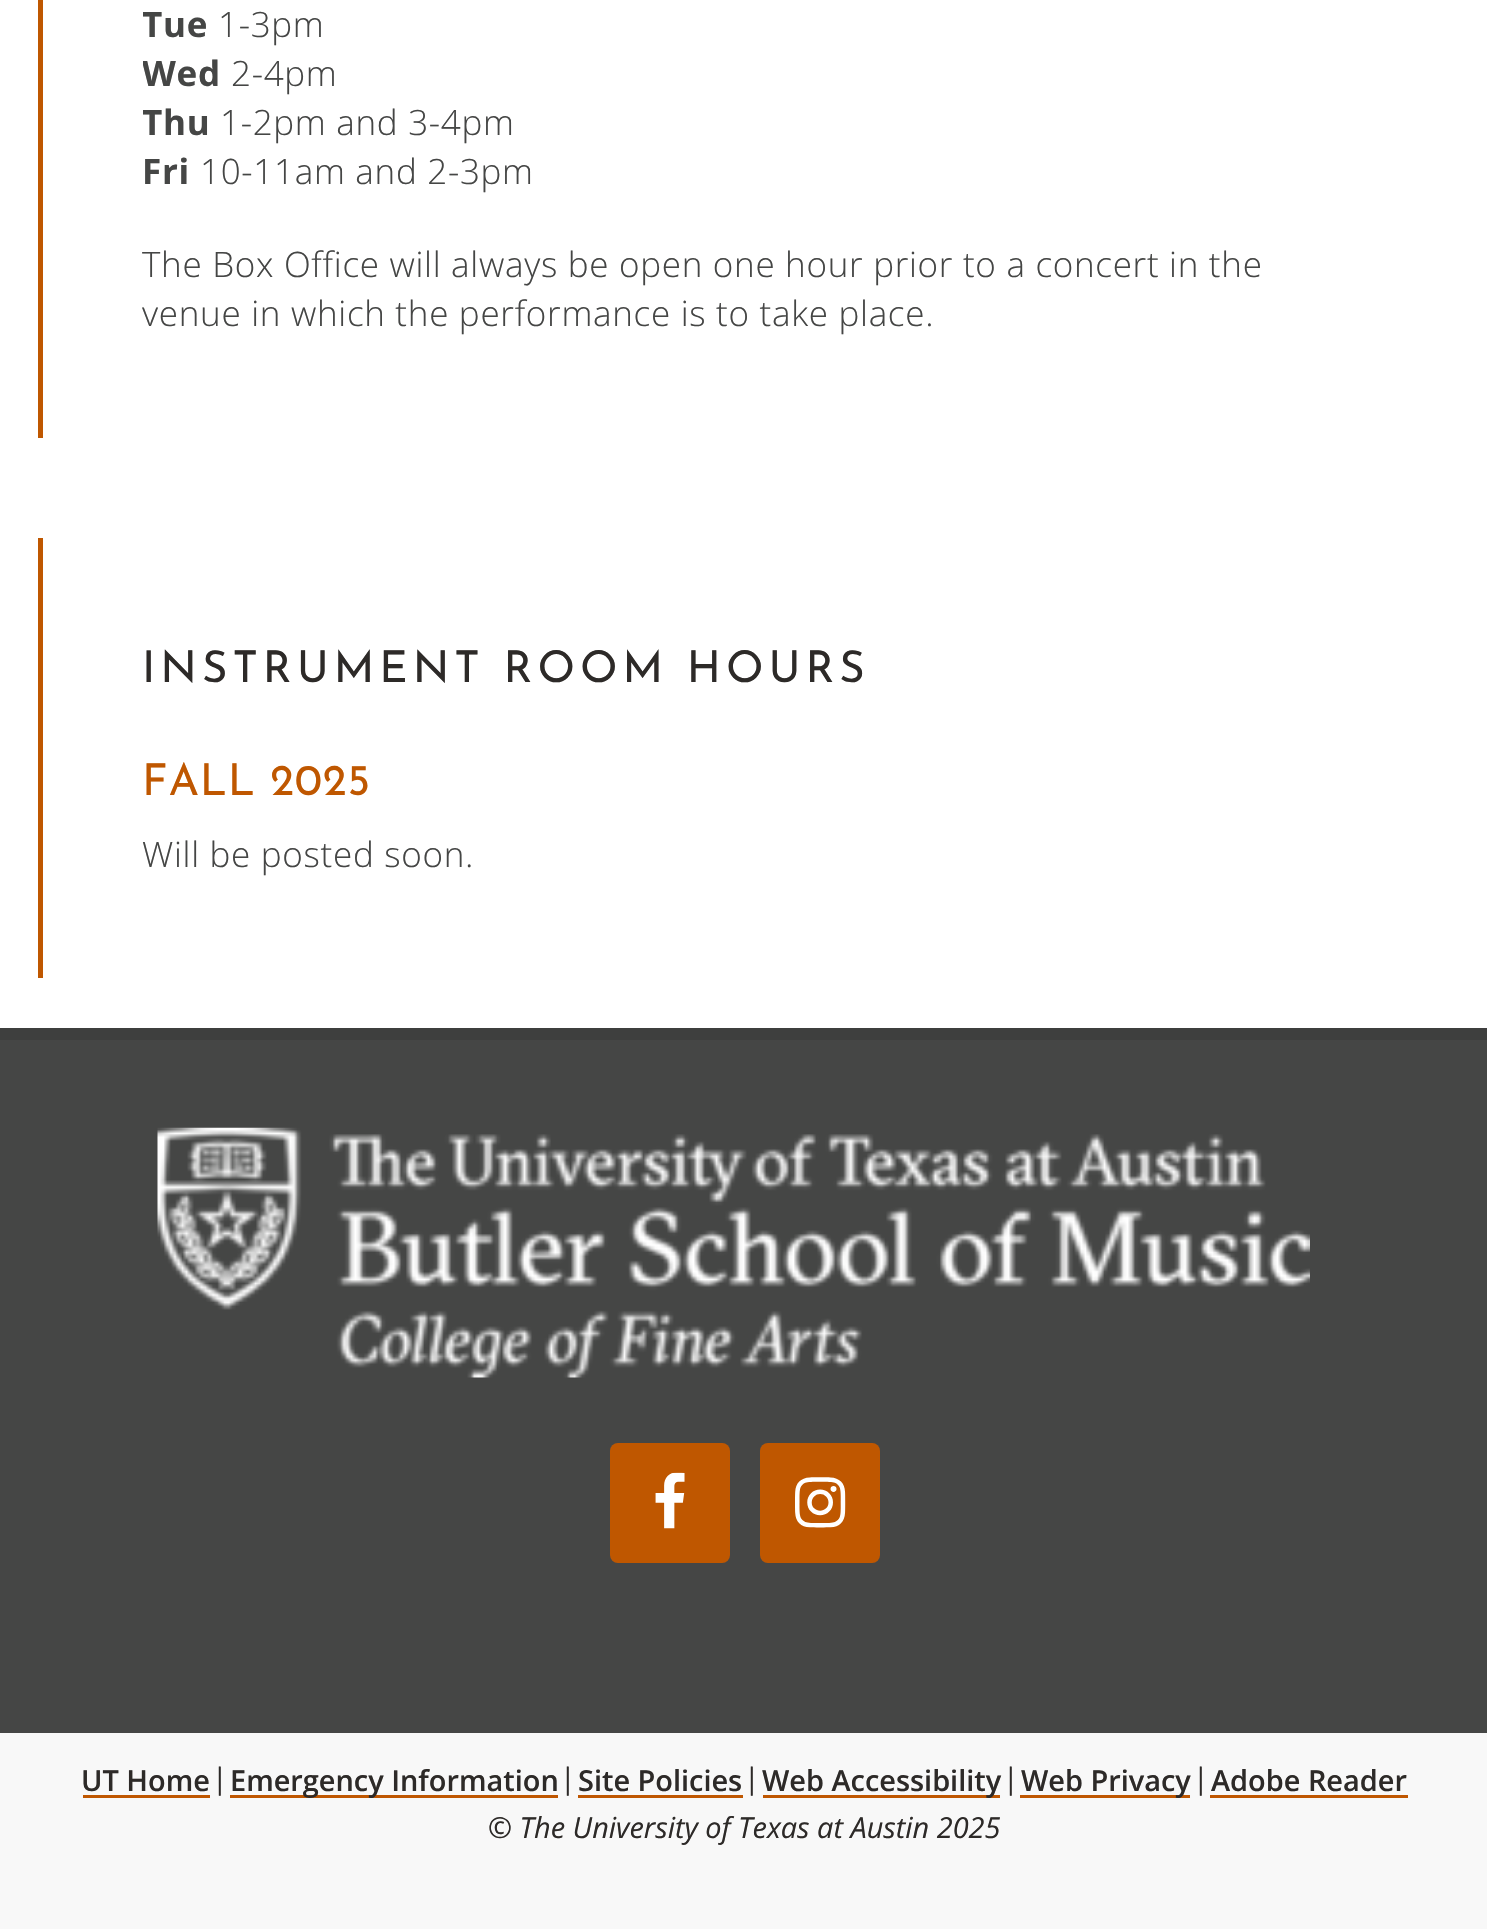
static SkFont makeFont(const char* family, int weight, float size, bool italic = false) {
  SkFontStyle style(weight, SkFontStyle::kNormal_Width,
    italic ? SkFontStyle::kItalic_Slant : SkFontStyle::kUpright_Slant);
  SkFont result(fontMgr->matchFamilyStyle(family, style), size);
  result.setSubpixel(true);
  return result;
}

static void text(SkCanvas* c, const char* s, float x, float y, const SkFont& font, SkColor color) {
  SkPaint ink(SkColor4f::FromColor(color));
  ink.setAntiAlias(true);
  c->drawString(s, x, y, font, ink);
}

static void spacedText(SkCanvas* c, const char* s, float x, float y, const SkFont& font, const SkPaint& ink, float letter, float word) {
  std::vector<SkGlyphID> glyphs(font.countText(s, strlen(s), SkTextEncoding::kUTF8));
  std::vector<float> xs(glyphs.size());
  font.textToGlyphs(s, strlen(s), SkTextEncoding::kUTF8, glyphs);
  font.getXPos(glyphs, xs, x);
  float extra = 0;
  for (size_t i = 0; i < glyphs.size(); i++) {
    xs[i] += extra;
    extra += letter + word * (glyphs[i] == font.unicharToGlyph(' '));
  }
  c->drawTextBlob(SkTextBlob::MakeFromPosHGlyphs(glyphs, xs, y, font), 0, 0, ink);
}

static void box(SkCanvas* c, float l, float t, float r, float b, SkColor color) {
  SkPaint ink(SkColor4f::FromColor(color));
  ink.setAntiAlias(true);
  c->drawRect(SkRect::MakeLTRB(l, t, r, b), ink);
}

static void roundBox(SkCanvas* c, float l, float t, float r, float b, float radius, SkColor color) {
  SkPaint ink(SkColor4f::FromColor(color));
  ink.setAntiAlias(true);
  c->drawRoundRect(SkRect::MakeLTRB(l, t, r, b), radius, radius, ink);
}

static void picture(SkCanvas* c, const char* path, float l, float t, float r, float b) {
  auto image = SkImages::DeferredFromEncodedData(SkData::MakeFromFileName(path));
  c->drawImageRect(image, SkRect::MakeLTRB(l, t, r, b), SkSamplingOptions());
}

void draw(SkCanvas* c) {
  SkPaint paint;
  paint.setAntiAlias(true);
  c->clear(0xffffffff);
  box(c, 38, 0, 43, 438, 0xffbf5700);
  c->save();
  c->clipRect(SkRect::MakeLTRB(143, 0, 1350, 338));
  SkFont face1 = makeFont("Open Sans", 700, 35);
  paint.setColor(0xff454645);
  spacedText(c, "Tue", 142, 37, face1, paint, 0.7f, 0);
  c->restore();
  SkFont face2 = makeFont("Open Sans", 300, 35);
  spacedText(c, "1-3pm", 218, 37, face2, paint, 0.7f, 0);
  c->save();
  c->clipRect(SkRect::MakeLTRB(143, 0, 1350, 338));
  spacedText(c, "Wed", 142, 86, face1, paint, 0.7f, 0);
  c->restore();
  spacedText(c, "2-4pm", 231, 86, face2, paint, 0.7f, 0);
  c->save();
  c->clipRect(SkRect::MakeLTRB(143, 0, 1350, 338));
  spacedText(c, "Thu", 142, 135, face1, paint, 0.7f, 0);
  c->restore();
  spacedText(c, "1-2pm and 3-4pm", 220, 135, face2, paint, 0.7f, 0);
  spacedText(c, "Fri", 142, 184, face1, paint, 0.7f, 0);
  spacedText(c, "10-11am and 2-3pm", 200, 184, face2, paint, 0.7f, 0);
  spacedText(c, "The Box Office will always be open one hour prior to a concert in the", 142, 277, face2, paint, 0.7f, 0);
  spacedText(c, "venue in which the performance is to take place.", 142, 326, face2, paint, 0.7f, 0);
  box(c, 38, 538, 43, 978, 0xffbf5700);
  SkFont face3 = makeFont("Josefin Sans", 400, 43.75f);
  paint.setColor(0xff2d2a28);
  spacedText(c, "INSTRUMENT ROOM HOURS", 142, 682, face3, paint, 5, 0);
  paint.setColor(0xffbf5700);
  spacedText(c, "FALL 2025", 142, 795, face3, paint, 0.7f, 0);
  paint.setColor(0xff454645);
  spacedText(c, "Will be posted soon.", 142, 867, face2, paint, 0.7f, 0);
  box(c, 0, 1040, 1487, 1733, 0xff454645);
  box(c, 0, 1028, 1487, 1040, 0xff3e3f3e);
  picture(c, "img_01.png", 157, 1127, 1310, 1378);
  roundBox(c, 610, 1443, 730, 1563, 8, 0xffbf5700);
  picture(c, "img_02.png", 655, 1472, 685, 1529);
  roundBox(c, 760, 1443, 880, 1563, 8, 0xffbf5700);
  picture(c, "img_03.png", 795, 1477, 846, 1528);
  box(c, 0, 1733, 1487, 1929, 0xfff8f8f8);
  SkFont face4 = makeFont("Open Sans", 600, 28.9f);
  text(c, "UT Home", 81, 1791, face4, 0xff2d2a28);
  box(c, 83, 1795, 210, 1798, 0xffbf5701);
  SkFont face5 = makeFont("Libre Franklin", 400, 28.9f);
  text(c, "|", 216, 1791, face5, 0xff2d2a28);
  box(c, 230, 1795, 558, 1798, 0xffbf5701);
  text(c, "Emergency Information", 230, 1791, face4, 0xff2d2a28);
  text(c, "|", 564, 1791, face5, 0xff2d2a28);
  text(c, "Site Policies", 578, 1791, face4, 0xff2d2a28);
  box(c, 578, 1795, 743, 1798, 0xffbf5701);
  text(c, "|", 748, 1791, face5, 0xff2d2a28);
  box(c, 763, 1795, 1000, 1798, 0xffbf5701);
  text(c, "Web Accessibility", 762, 1791, face4, 0xff2d2a28);
  text(c, "|", 1007, 1791, face5, 0xff2d2a28);
  box(c, 1020, 1795, 1190, 1798, 0xffbf5701);
  text(c, "Web Privacy", 1021, 1791, face4, 0xff2d2a28);
  text(c, "|", 1197, 1791, face5, 0xff2d2a28);
  text(c, "Adobe Reader", 1211, 1791, face4, 0xff2d2a28);
  box(c, 1210, 1795, 1408, 1798, 0xffbf5701);
  SkFont face6 = makeFont("Open Sans", 400, 28.9f, true);
  text(c, "© The University of Texas at Austin 2025", 488, 1838, face6, 0xff2d2a28);
}
